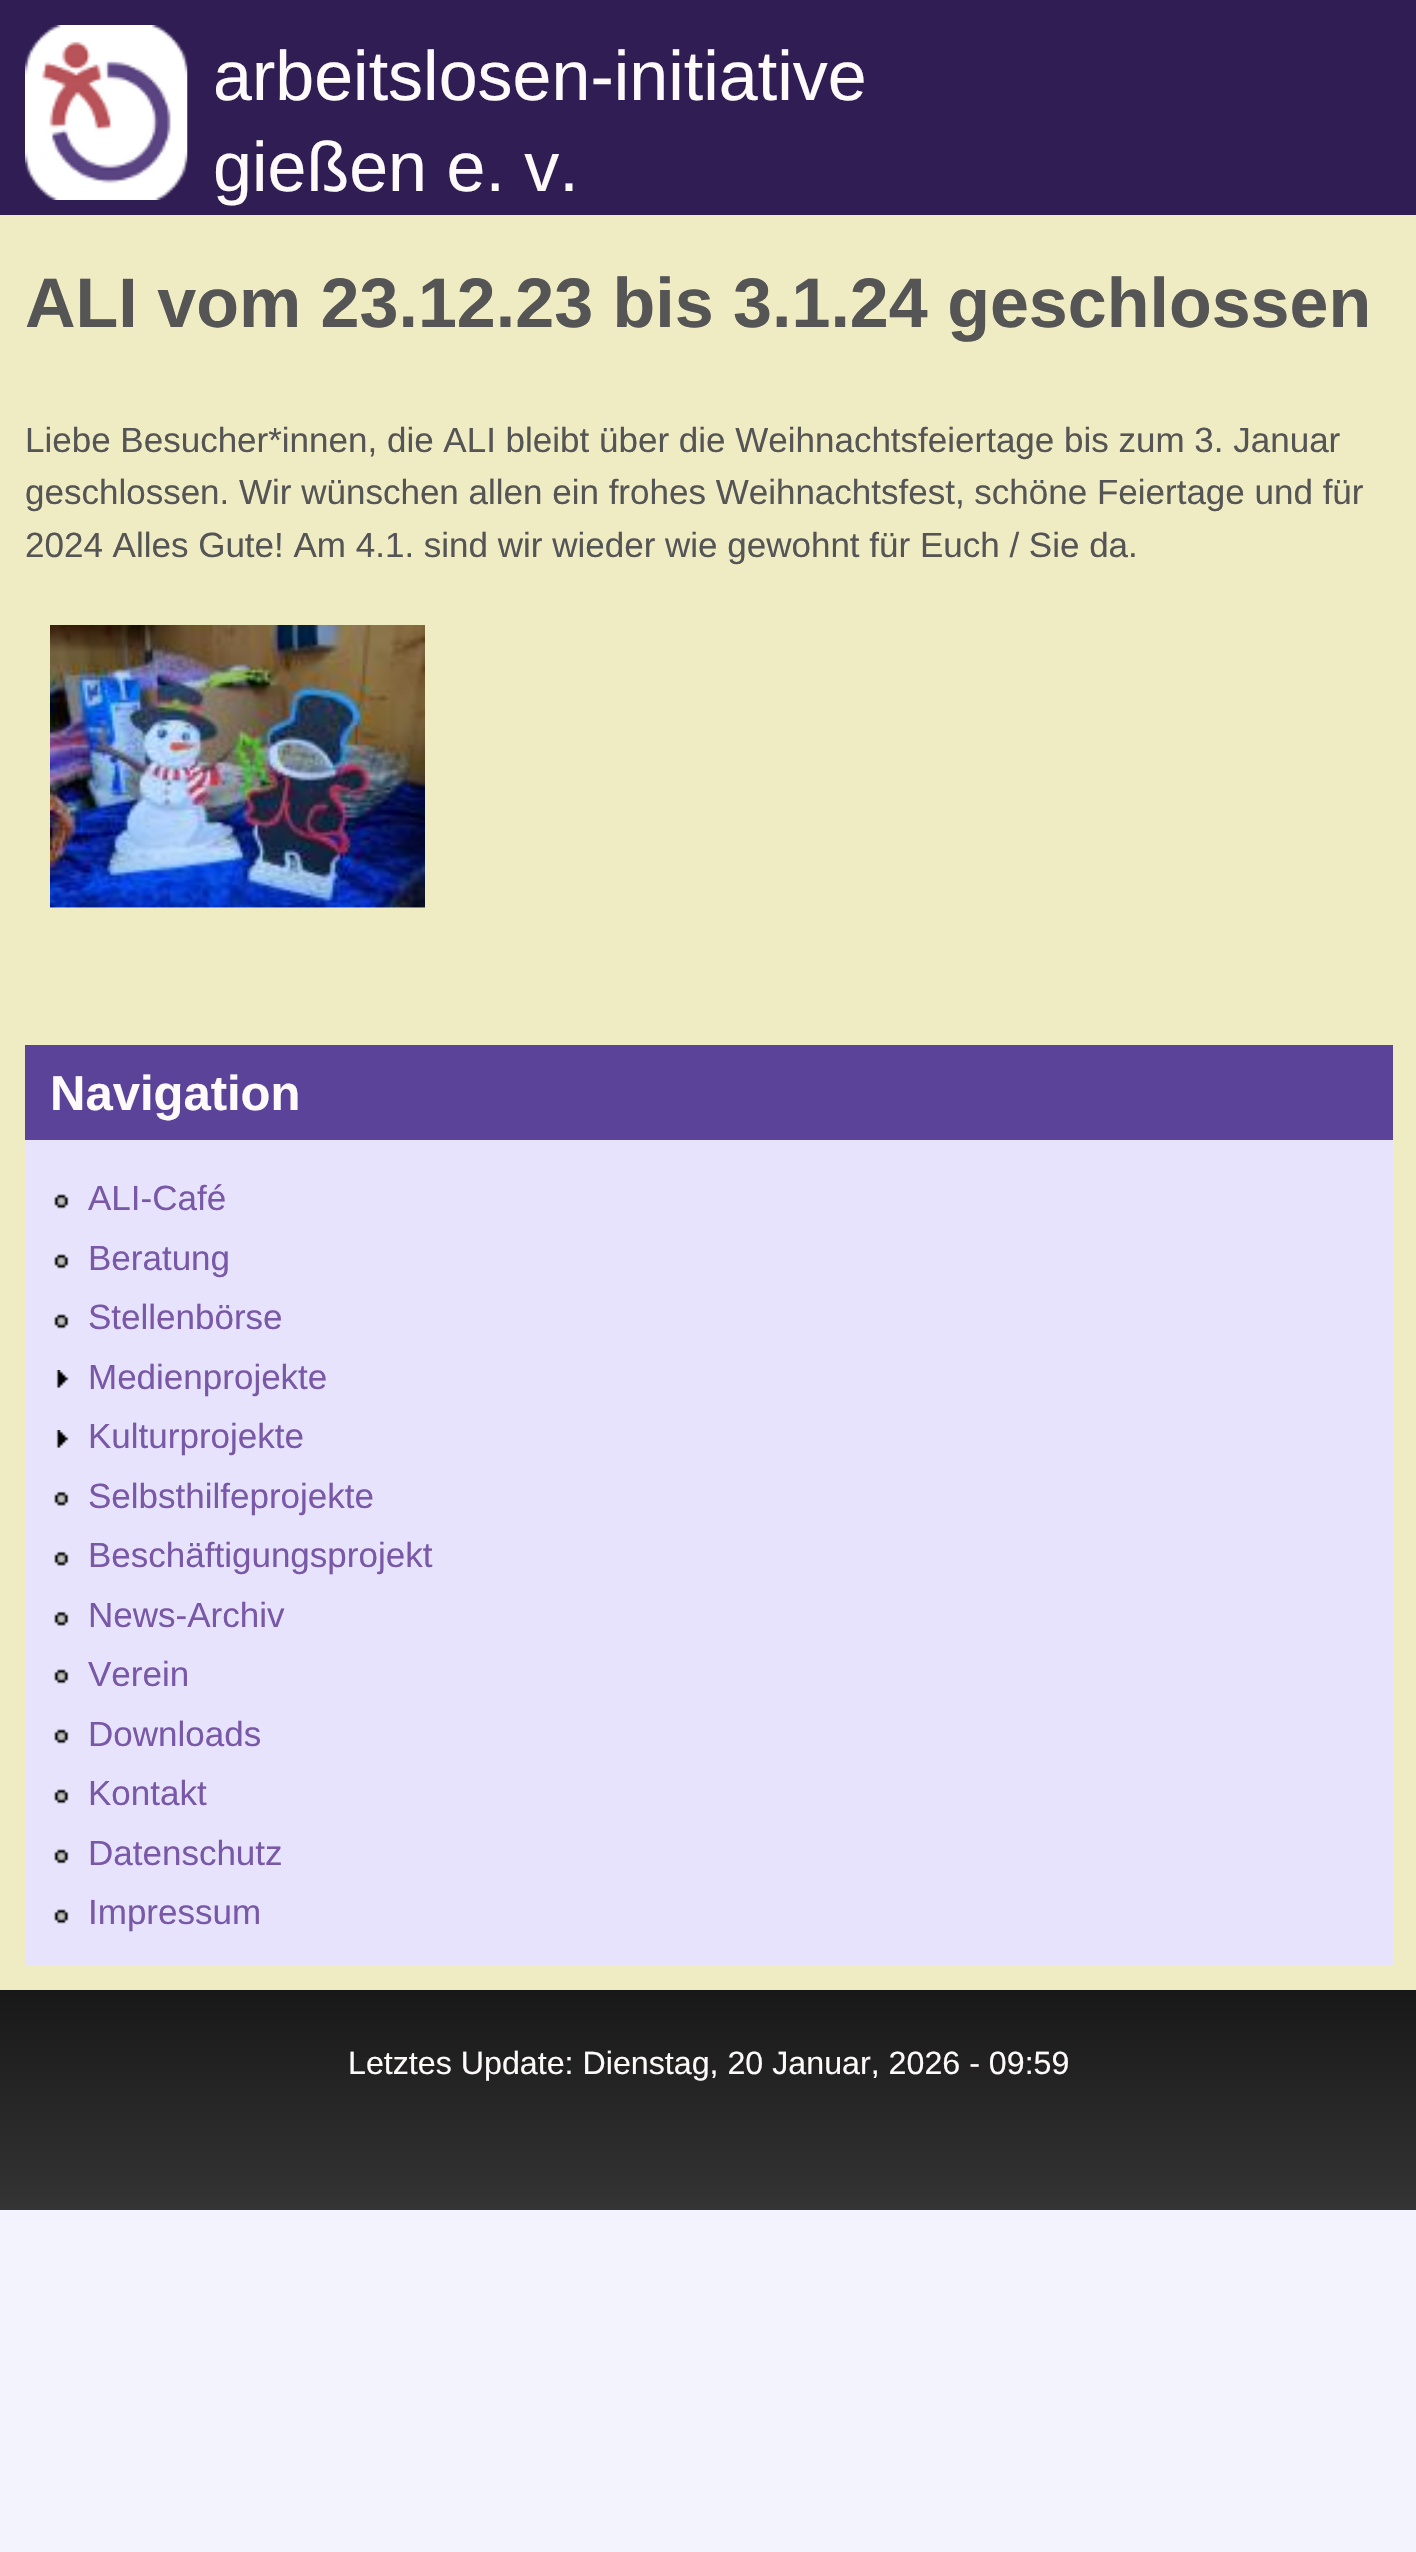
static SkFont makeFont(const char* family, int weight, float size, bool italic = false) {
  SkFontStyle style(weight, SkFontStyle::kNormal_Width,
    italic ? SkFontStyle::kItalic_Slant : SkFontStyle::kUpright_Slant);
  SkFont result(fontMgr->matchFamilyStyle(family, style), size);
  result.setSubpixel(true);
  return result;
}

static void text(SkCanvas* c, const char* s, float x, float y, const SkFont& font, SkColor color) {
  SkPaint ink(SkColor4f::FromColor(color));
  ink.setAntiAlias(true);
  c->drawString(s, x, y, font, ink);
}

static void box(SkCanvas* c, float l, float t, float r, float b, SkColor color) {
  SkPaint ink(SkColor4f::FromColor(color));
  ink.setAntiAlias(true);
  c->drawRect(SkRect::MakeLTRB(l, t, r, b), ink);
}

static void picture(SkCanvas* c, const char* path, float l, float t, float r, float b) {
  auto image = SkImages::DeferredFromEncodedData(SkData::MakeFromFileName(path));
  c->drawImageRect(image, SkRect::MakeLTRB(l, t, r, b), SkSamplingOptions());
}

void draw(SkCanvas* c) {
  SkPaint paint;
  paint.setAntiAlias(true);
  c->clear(0xfff2f3fd);
  box(c, 0, 215, 1416, 1990, 0xffefecc4);
  box(c, 0, 0, 1416, 215, 0xff301d53);
  picture(c, "img_01.png", 25, 25, 188, 200);
  SkFont face1 = makeFont("Liberation Sans", 400, 70);
  text(c, "arbeitslosen-initiative", 213, 100, face1, 0xfffefafa);
  text(c, "gießen e. v.", 213, 191, face1, 0xfffefafa);
  SkFont face2 = makeFont("Liberation Sans", 700, 70);
  text(c, "ALI vom 23.12.23 bis 3.1.24 geschlossen", 25, 327, face2, 0xff555555);
  SkFont face3 = makeFont("Liberation Sans", 400, 35);
  text(c, "Liebe Besucher*innen, die ALI bleibt über die Weihnachtsfeiertage bis zum 3. Januar", 25, 452, face3, 0xff555555);
  text(c, "geschlossen. Wir wünschen allen ein frohes Weihnachtsfest, schöne Feiertage und für", 25, 504, face3, 0xff555555);
  text(c, "2024 Alles Gute! Am 4.1. sind wir wieder wie gewohnt für Euch / Sie da.", 25, 557, face3, 0xff555555);
  box(c, 50, 907, 425, 908, 0xfffdfdf9);
  picture(c, "img_02.png", 50, 625, 425, 908);
  box(c, 25, 1140, 1393, 1965, 0xffe7e3fc);
  box(c, 25, 1045, 1393, 1140, 0xff5b4399);
  SkFont face4 = makeFont("Liberation Sans", 700, 49);
  text(c, "Navigation", 50, 1110, face4, 0xfffefafa);
  picture(c, "img_03.png", 54, 1194, 69, 1209);
  text(c, "ALI-Café", 88, 1210, face3, 0xff7958a7);
  picture(c, "img_03.png", 54, 1254, 69, 1269);
  text(c, "Beratung", 88, 1270, face3, 0xff7958a7);
  picture(c, "img_03.png", 54, 1314, 69, 1329);
  text(c, "Stellenbörse", 88, 1329, face3, 0xff7958a7);
  picture(c, "img_04.png", 56, 1370, 69, 1388);
  text(c, "Medienprojekte", 88, 1389, face3, 0xff7958a7);
  picture(c, "img_04.png", 56, 1430, 69, 1448);
  text(c, "Kulturprojekte", 88, 1448, face3, 0xff7958a7);
  picture(c, "img_05.png", 54, 1491, 69, 1506);
  text(c, "Selbsthilfeprojekte", 88, 1508, face3, 0xff7958a7);
  picture(c, "img_05.png", 54, 1551, 69, 1566);
  text(c, "Beschäftigungsprojekt", 88, 1567, face3, 0xff7958a7);
  picture(c, "img_05.png", 54, 1611, 69, 1626);
  text(c, "News-Archiv", 88, 1627, face3, 0xff7958a7);
  picture(c, "img_03.png", 54, 1669, 69, 1684);
  text(c, "Verein", 88, 1686, face3, 0xff7958a7);
  picture(c, "img_03.png", 54, 1729, 69, 1744);
  text(c, "Downloads", 88, 1746, face3, 0xff7958a7);
  picture(c, "img_03.png", 54, 1789, 69, 1804);
  text(c, "Kontakt", 88, 1805, face3, 0xff7958a7);
  picture(c, "img_06.png", 54, 1849, 69, 1864);
  text(c, "Datenschutz", 88, 1865, face3, 0xff7958a7);
  picture(c, "img_03.png", 54, 1909, 69, 1924);
  text(c, "Impressum", 88, 1924, face3, 0xff7958a7);
  {
    const SkColor colors[] = {0xff181818, 0xff343434};
    const float stops[] = {0, 1};
    const SkPoint ends[] = {{0, 1990}, {0, 2210}};
    paint.setShader(SkGradientShader::MakeLinear(ends, colors, stops, 2, SkTileMode::kClamp));
    paint.setAlpha(255);
  }
  c->drawRect(SkRect::MakeLTRB(0, 1990, 1416, 2210), paint);
  SkFont face5 = makeFont("Liberation Sans", 400, 32.2f);
  text(c, "Letztes Update: Dienstag, 20 Januar, 2026 - 09:59", 348, 2074, face5, 0xfffefafa);
}
